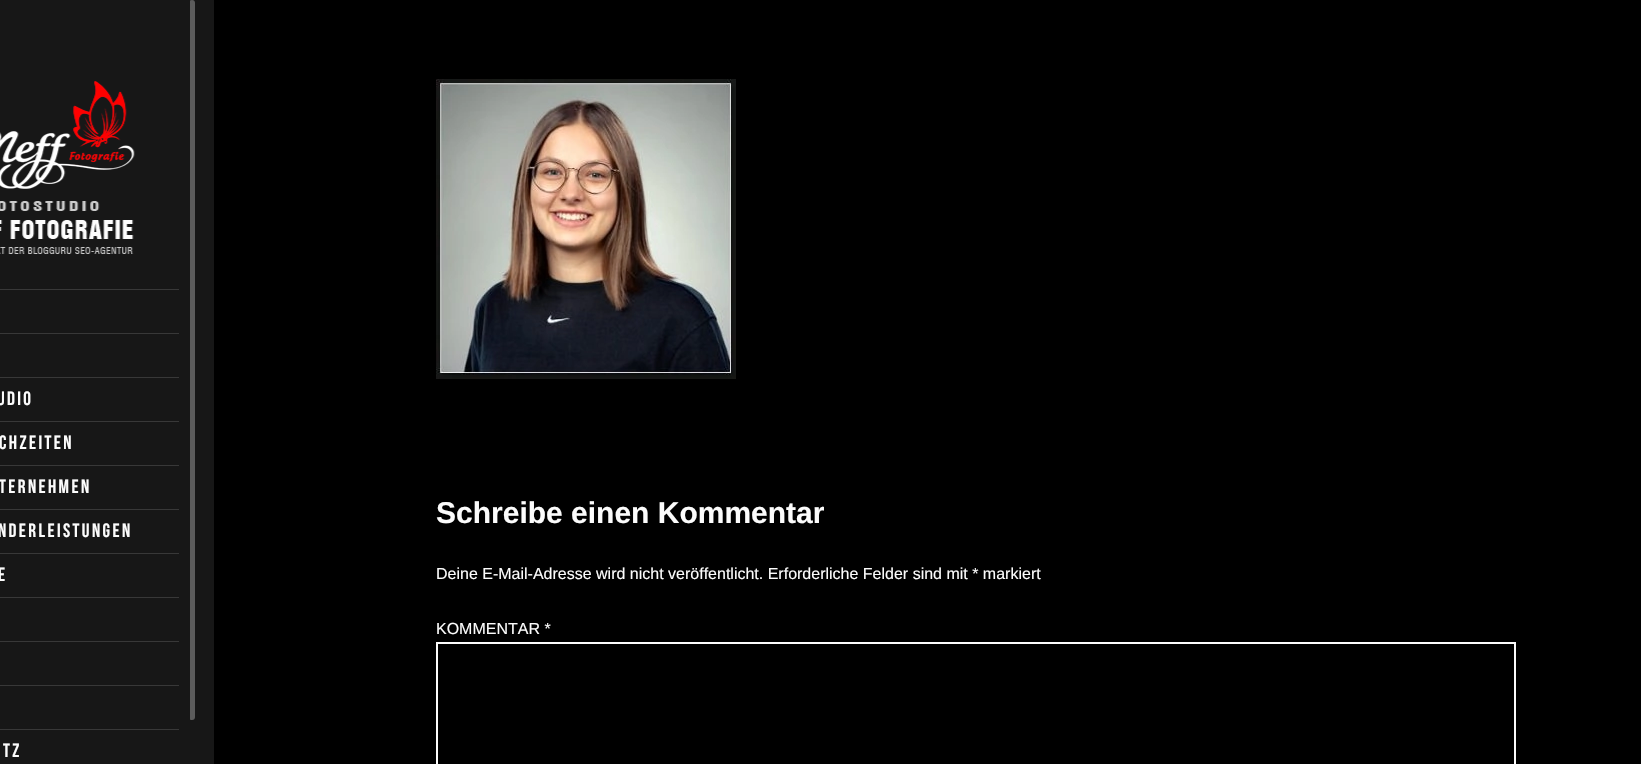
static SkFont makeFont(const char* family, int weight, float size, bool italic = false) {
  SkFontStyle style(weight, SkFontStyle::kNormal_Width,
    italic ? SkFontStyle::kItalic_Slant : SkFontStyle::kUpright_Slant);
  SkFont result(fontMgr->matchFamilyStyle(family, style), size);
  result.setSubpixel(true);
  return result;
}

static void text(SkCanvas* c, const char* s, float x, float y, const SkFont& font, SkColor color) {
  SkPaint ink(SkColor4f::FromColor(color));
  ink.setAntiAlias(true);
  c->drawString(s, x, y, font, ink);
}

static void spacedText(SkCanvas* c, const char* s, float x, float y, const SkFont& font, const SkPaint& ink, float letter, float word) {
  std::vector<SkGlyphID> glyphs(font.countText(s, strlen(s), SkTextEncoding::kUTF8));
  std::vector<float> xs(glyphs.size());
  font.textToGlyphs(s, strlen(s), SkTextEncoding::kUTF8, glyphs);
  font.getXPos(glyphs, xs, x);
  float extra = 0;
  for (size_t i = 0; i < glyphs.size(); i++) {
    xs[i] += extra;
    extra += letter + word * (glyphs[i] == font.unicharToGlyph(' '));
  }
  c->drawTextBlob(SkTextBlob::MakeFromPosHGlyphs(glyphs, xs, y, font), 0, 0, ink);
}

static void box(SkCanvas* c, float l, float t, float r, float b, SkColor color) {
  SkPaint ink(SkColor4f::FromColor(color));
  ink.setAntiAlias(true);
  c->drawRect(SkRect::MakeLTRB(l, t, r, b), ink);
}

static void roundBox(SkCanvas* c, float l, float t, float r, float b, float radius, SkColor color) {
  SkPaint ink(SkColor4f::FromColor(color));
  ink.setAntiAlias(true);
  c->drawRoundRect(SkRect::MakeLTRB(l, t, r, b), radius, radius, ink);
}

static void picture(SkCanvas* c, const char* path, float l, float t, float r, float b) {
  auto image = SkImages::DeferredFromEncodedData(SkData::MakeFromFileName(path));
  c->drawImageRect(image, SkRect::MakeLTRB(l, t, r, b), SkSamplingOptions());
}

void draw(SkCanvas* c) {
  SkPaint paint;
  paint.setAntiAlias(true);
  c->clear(0xff000000);
  box(c, 0, 0, 214, 764, 0xff171717);
  picture(c, "img_01.png", 0, 81, 135, 254);
  box(c, 0, 289, 179, 290, 0xff383838);
  box(c, 0, 333, 179, 334, 0xff383838);
  box(c, 0, 377, 179, 378, 0xff383838);
  box(c, 0, 421, 179, 422, 0xff383838);
  SkFont face1 = makeFont("Bebas Neue", 400, 19.25f);
  paint.setColor(0xfffcfcfc);
  spacedText(c, "UDIO", -3, 405, face1, paint, 2.4f, 0);
  box(c, 0, 465, 179, 466, 0xff383838);
  spacedText(c, "CHZEITEN", -1, 449, face1, paint, 2.4f, 0);
  box(c, 0, 509, 179, 510, 0xff383838);
  spacedText(c, "TERNEHMEN", -1, 493, face1, paint, 2.4f, 0);
  box(c, 0, 553, 179, 554, 0xff383838);
  spacedText(c, "NDERLEISTUNGEN", -2, 537, face1, paint, 2.4f, 0);
  box(c, 0, 597, 179, 598, 0xff383838);
  spacedText(c, "E", -2, 581, face1, paint, 2.4f, 0);
  box(c, 0, 641, 179, 642, 0xff383838);
  box(c, 0, 685, 179, 686, 0xff383838);
  box(c, 0, 729, 179, 730, 0xff383838);
  spacedText(c, "TZ", 3, 757, face1, paint, 2.4f, 0);
  c->save();
  c->clipRect(SkRect::MakeLTRB(190, 0, 198, 764));
  roundBox(c, 189, 0, 195, 720, 3, 0xff5c5c5c);
  c->restore();
  picture(c, "img_02.png", 436, 79, 736, 379);
  SkFont face2 = makeFont("Liberation Sans", 700, 30);
  text(c, "Schreibe einen Kommentar", 436, 523, face2, 0xfffcfcfc);
  SkFont face3 = makeFont("Liberation Sans", 400, 16);
  text(c, "Deine E-Mail-Adresse wird nicht veröffentlicht. Erforderliche Felder sind mit * markiert", 436, 579, face3, 0xfffcfcfc);
  text(c, "KOMMENTAR *", 436, 634, face3, 0xfffcfcfc);
  paint.setStyle(SkPaint::kStroke_Style);
  paint.setStrokeWidth(2);
  c->drawRect(SkRect::MakeLTRB(437, 643, 1515, 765), paint);
}
